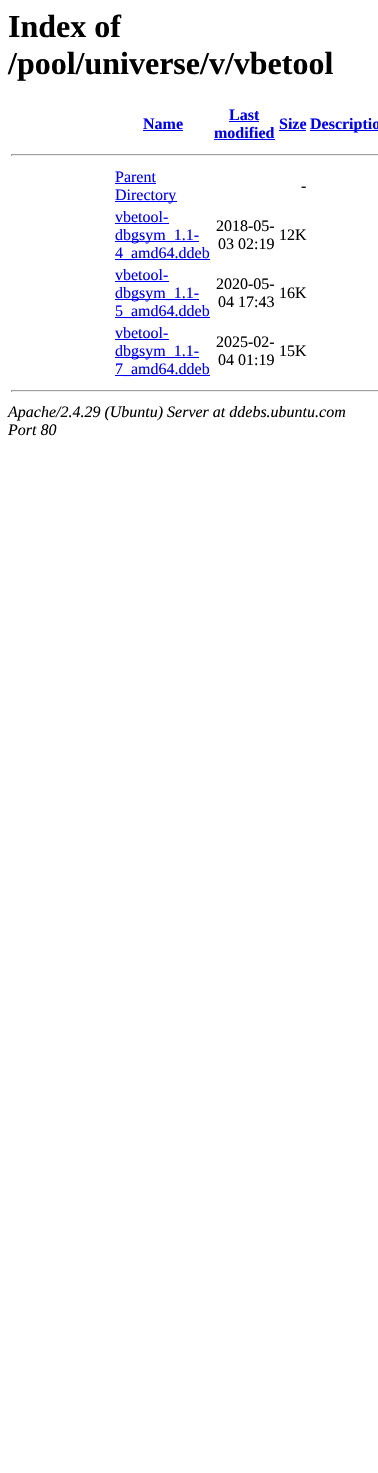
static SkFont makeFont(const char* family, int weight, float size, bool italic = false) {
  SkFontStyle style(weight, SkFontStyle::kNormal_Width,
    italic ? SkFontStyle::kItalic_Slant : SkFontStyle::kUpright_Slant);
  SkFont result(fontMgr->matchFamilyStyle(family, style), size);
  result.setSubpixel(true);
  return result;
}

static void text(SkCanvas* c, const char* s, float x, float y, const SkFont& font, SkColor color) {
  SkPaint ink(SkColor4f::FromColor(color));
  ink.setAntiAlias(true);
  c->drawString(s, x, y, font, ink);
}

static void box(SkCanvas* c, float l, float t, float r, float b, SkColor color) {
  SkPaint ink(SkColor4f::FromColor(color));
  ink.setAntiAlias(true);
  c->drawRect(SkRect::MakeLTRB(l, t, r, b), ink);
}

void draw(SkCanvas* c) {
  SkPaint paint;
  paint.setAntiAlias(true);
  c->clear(0xffffffff);
  SkFont face1 = makeFont("Liberation Serif", 700, 32);
  text(c, "Index of", 8, 37, face1, 0xff000000);
  text(c, "/pool/universe/v/vbetool", 8, 74, face1, 0xff000000);
  SkFont face2 = makeFont("Liberation Serif", 700, 16);
  text(c, "Name", 143, 129, face2, 0xff0000ee);
  box(c, 143, 130, 183, 131, 0xff0000ee);
  text(c, "Last", 229, 120, face2, 0xff0000ee);
  box(c, 229, 121, 259, 122, 0xff0000ee);
  text(c, "modified", 214, 138, face2, 0xff0000ee);
  box(c, 214, 139, 275, 140, 0xff0000ee);
  text(c, "Size", 279, 129, face2, 0xff0000ee);
  box(c, 279, 130, 306, 131, 0xff0000ee);
  box(c, 310, 130, 378, 131, 0xff0000ee);
  text(c, "Descriptio", 310, 129, face2, 0xff0000ee);
  box(c, 11, 154, 378, 155, 0xff9f9f9f);
  box(c, 11, 155, 378, 156, 0xffeeeeee);
  box(c, 11, 154, 12, 156, 0xff9f9f9f);
  SkFont face3 = makeFont("Liberation Serif", 400, 16);
  text(c, "Parent", 115, 182, face3, 0xff0000ee);
  box(c, 115, 183, 156, 184, 0xff0000ee);
  box(c, 115, 201, 177, 202, 0xff0000ee);
  text(c, "Directory", 115, 200, face3, 0xff0000ee);
  text(c, "-", 301, 191, face3, 0xff000000);
  text(c, "vbetool-", 115, 222, face3, 0xff0000ee);
  box(c, 115, 223, 169, 224, 0xff0000ee);
  box(c, 115, 241, 199, 242, 0xff0000ee);
  text(c, "dbgsym_1.1-", 115, 240, face3, 0xff0000ee);
  box(c, 115, 259, 210, 260, 0xff0000ee);
  text(c, "4_amd64.ddeb", 115, 258, face3, 0xff0000ee);
  text(c, "2018-05-", 216, 231, face3, 0xff000000);
  text(c, "03 02:19", 218, 249, face3, 0xff000000);
  text(c, "12K", 279, 240, face3, 0xff000000);
  text(c, "vbetool-", 115, 280, face3, 0xff0000ee);
  box(c, 115, 281, 169, 282, 0xff0000ee);
  box(c, 115, 299, 199, 300, 0xff0000ee);
  text(c, "dbgsym_1.1-", 115, 298, face3, 0xff0000ee);
  box(c, 115, 317, 210, 318, 0xff0000ee);
  text(c, "5_amd64.ddeb", 115, 316, face3, 0xff0000ee);
  text(c, "2020-05-", 216, 289, face3, 0xff000000);
  text(c, "04 17:43", 218, 307, face3, 0xff000000);
  text(c, "16K", 279, 298, face3, 0xff000000);
  text(c, "vbetool-", 115, 338, face3, 0xff0000ee);
  box(c, 115, 339, 169, 340, 0xff0000ee);
  box(c, 115, 357, 199, 358, 0xff0000ee);
  text(c, "dbgsym_1.1-", 115, 356, face3, 0xff0000ee);
  box(c, 115, 375, 210, 376, 0xff0000ee);
  text(c, "7_amd64.ddeb", 115, 374, face3, 0xff0000ee);
  text(c, "2025-02-", 216, 347, face3, 0xff000000);
  text(c, "04 01:19", 218, 365, face3, 0xff000000);
  text(c, "15K", 279, 356, face3, 0xff000000);
  box(c, 11, 390, 378, 391, 0xff9f9f9f);
  box(c, 11, 391, 378, 392, 0xffeeeeee);
  box(c, 11, 390, 12, 392, 0xff9f9f9f);
  SkFont face4 = makeFont("Liberation Serif", 400, 16, true);
  text(c, "Apache/2.4.29 (Ubuntu) Server at ddebs.ubuntu.com", 8, 417, face4, 0xff000000);
  text(c, "Port 80", 8, 435, face4, 0xff000000);
}
